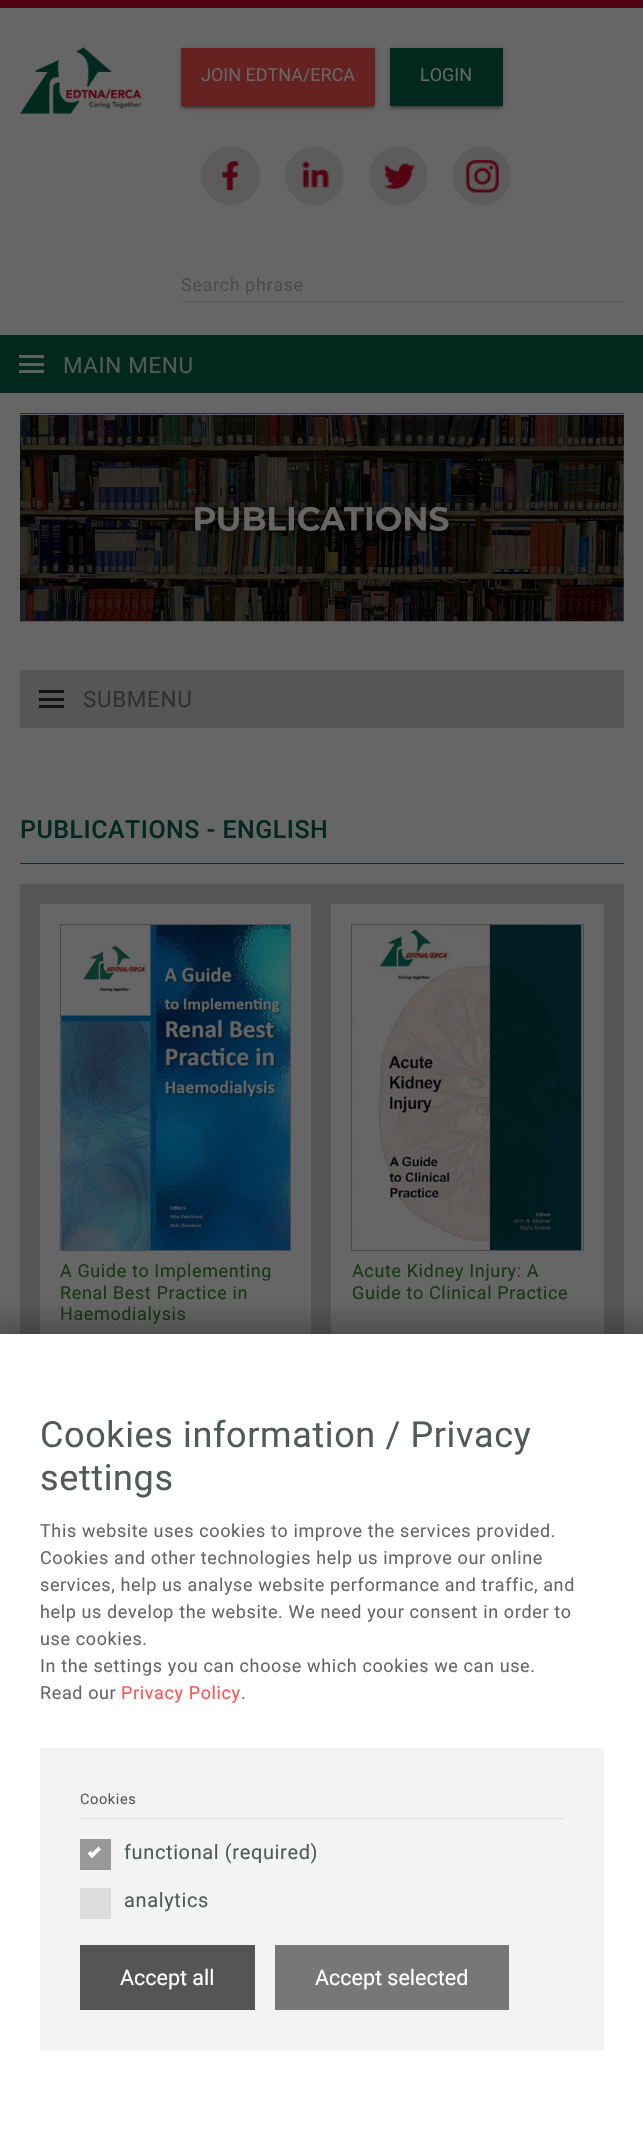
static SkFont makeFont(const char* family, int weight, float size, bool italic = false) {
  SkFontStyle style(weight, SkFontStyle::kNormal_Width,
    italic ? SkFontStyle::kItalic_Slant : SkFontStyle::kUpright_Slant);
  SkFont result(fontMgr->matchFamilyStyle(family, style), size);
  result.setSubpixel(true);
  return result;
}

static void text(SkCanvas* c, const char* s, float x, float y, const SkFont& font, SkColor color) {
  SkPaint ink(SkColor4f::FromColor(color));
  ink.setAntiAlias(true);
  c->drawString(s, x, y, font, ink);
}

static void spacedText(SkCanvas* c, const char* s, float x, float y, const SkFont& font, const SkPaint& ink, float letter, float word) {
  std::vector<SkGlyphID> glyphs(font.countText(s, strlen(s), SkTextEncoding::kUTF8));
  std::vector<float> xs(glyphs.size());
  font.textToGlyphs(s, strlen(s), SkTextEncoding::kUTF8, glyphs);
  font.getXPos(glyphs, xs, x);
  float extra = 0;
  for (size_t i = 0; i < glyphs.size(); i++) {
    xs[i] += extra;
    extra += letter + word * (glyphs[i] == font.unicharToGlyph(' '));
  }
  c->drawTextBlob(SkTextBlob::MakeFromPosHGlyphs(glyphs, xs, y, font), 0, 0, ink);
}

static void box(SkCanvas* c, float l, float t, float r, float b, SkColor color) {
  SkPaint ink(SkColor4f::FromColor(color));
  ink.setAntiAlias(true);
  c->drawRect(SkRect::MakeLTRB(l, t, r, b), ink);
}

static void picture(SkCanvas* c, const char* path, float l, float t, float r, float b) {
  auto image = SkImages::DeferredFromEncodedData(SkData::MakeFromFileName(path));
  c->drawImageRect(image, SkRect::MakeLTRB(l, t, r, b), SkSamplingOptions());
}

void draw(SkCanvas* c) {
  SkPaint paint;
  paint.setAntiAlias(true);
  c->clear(0xff666666);
  box(c, 0, 0, 643, 8, 0xff530412);
  picture(c, "img_01.png", 20, 47, 142, 114);
  paint.setColor(0x1f000000);
  paint.setMaskFilter(SkMaskFilter::MakeBlur(kNormal_SkBlurStyle, 3));
  c->drawRect(SkRect::MakeLTRB(181, 49, 375, 108), paint);
  paint.setMaskFilter(nullptr);
  paint.setColor(0x33000000);
  paint.setMaskFilter(SkMaskFilter::MakeBlur(kNormal_SkBlurStyle, 0.5f));
  c->drawRect(SkRect::MakeLTRB(184, 54, 373, 108), paint);
  paint.setMaskFilter(nullptr);
  paint.setColor(0x24000000);
  paint.setMaskFilter(SkMaskFilter::MakeBlur(kNormal_SkBlurStyle, 1));
  c->drawRect(SkRect::MakeLTRB(181, 50, 375, 109), paint);
  paint.setMaskFilter(nullptr);
  box(c, 181, 48, 375, 106, 0xff662121);
  SkFont face1 = makeFont("Roboto", 400, 18);
  text(c, "JOIN EDTNA/ERCA", 201, 81, face1, 0xff666666);
  paint.setColor(0x1f000000);
  paint.setMaskFilter(SkMaskFilter::MakeBlur(kNormal_SkBlurStyle, 3));
  c->drawRect(SkRect::MakeLTRB(390, 49, 503, 108), paint);
  paint.setMaskFilter(nullptr);
  paint.setColor(0x33000000);
  paint.setMaskFilter(SkMaskFilter::MakeBlur(kNormal_SkBlurStyle, 0.5f));
  c->drawRect(SkRect::MakeLTRB(393, 54, 500, 108), paint);
  paint.setMaskFilter(nullptr);
  paint.setColor(0x24000000);
  paint.setMaskFilter(SkMaskFilter::MakeBlur(kNormal_SkBlurStyle, 1));
  c->drawRect(SkRect::MakeLTRB(390, 50, 503, 109), paint);
  paint.setMaskFilter(nullptr);
  box(c, 390, 48, 503, 106, 0xff02291d);
  text(c, "LOGIN", 420, 81, face1, 0xff666666);
  picture(c, "img_02.png", 201, 146, 260, 205);
  picture(c, "img_03.png", 285, 146, 344, 205);
  picture(c, "img_04.png", 368, 146, 428, 205);
  picture(c, "img_05.png", 452, 146, 512, 205);
  paint.setColor(0xff4c4c4c);
  spacedText(c, "Search phrase", 181, 291, face1, paint, 0.62f, 0);
  box(c, 181, 301, 624, 302, 0xff5a5a5a);
  box(c, 0, 335, 643, 393, 0xff02281d);
  box(c, 19, 355, 44, 358, 0xff5c605f);
  box(c, 19, 363, 44, 366, 0xff5c605f);
  box(c, 19, 370, 44, 373, 0xff5c605f);
  SkFont face2 = makeFont("Roboto", 400, 22.5f);
  paint.setColor(0xff525a58);
  spacedText(c, "MAIN MENU", 63, 373, face2, paint, 0.62f, 0);
  box(c, 20, 413, 624, 414, 0xff581a0a);
  picture(c, "img_06.png", 20, 415, 624, 622);
  box(c, 20, 670, 624, 728, 0xff565656);
  box(c, 39, 690, 64, 693, 0xff111111);
  paint.setColor(0xff303030);
  spacedText(c, "SUBMENU", 83, 707, face2, paint, 0.62f, 0);
  box(c, 39, 698, 64, 701, 0xff111111);
  box(c, 39, 705, 64, 708, 0xff111111);
  box(c, 20, 863, 624, 864, 0xff003329);
  SkFont face3 = makeFont("Roboto", 500, 25);
  paint.setColor(0xff01291d);
  spacedText(c, "PUBLICATIONS - ENGLISH", 20, 838, face3, paint, 0.5f, 0);
  box(c, 20, 884, 624, 1334, 0xff565656);
  box(c, 40, 904, 311, 1334, 0xff666666);
  paint.setStyle(SkPaint::kStroke_Style);
  paint.setStrokeWidth(1);
  paint.setColor(0xff484848);
  c->drawRect(SkRect::MakeLTRB(60.5f, 924.5f, 290.5f, 1250.5f), paint);
  picture(c, "img_07.png", 61, 925, 290, 1250);
  paint.setStyle(SkPaint::kFill_Style);
  paint.setColor(0xff183713);
  spacedText(c, "A Guide to Implementing", 60, 1277, face1, paint, 0.62f, 0);
  spacedText(c, "Renal Best Practice in", 60, 1299, face1, paint, 0.62f, 0);
  spacedText(c, "Haemodialysis", 60, 1320, face1, paint, 0.62f, 0);
  box(c, 331, 904, 604, 1334, 0xff666666);
  paint.setStyle(SkPaint::kStroke_Style);
  paint.setColor(0xff484848);
  c->drawRect(SkRect::MakeLTRB(351.5f, 924.5f, 583.5f, 1250.5f), paint);
  picture(c, "img_08.png", 352, 925, 582, 1250);
  paint.setStyle(SkPaint::kFill_Style);
  paint.setColor(0xff183713);
  spacedText(c, "Acute Kidney Injury: A", 352, 1277, face1, paint, 0.62f, 0);
  spacedText(c, "Guide to Clinical Practice", 352, 1299, face1, paint, 0.62f, 0);
  paint.setColor(0x40000000);
  paint.setMaskFilter(SkMaskFilter::MakeBlur(kNormal_SkBlurStyle, 12.5f));
  c->drawRect(SkRect::MakeLTRB(-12, 1321, 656, 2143), paint);
  paint.setMaskFilter(nullptr);
  box(c, 0, 1334, 643, 2130, 0xffffffff);
  SkFont face4 = makeFont("Roboto", 400, 36);
  paint.setColor(0xff525a58);
  spacedText(c, "Cookies information / Privacy", 40, 1447, face4, paint, 0.62f, 0);
  spacedText(c, "settings", 40, 1490, face4, paint, 0.62f, 0);
  paint.setColor(0xff666666);
  spacedText(c, "This website uses cookies to improve the services provided.", 40, 1537, face1, paint, 0.62f, 0);
  spacedText(c, "Cookies and other technologies help us improve our online", 40, 1564, face1, paint, 0.62f, 0);
  spacedText(c, "services, help us analyse website performance and traffic, and", 40, 1591, face1, paint, 0.62f, 0);
  spacedText(c, "help us develop the website. We need your consent in order to", 40, 1618, face1, paint, 0.62f, 0);
  spacedText(c, "use cookies.", 40, 1645, face1, paint, 0.62f, 0);
  spacedText(c, "In the settings you can choose which cookies we can use.", 40, 1672, face1, paint, 0.62f, 0);
  spacedText(c, "Read our", 40, 1699, face1, paint, 0.62f, 0);
  paint.setColor(0xffff5252);
  spacedText(c, "Privacy Policy", 121, 1699, face1, paint, 0.62f, 0);
  paint.setColor(0xff666666);
  spacedText(c, ".", 241, 1699, face1, paint, 0.62f, 0);
  box(c, 40, 1748, 604, 2050, 0xfff3f3f3);
  box(c, 80, 1818, 564, 1819, 0xffe0e0e0);
  SkFont face5 = makeFont("Roboto", 400, 14.5f);
  paint.setColor(0xff525a58);
  spacedText(c, "Cookies", 80, 1804, face5, paint, 0.62f, 0);
  box(c, 80, 1839, 111, 1870, 0xff999999);
  paint.setColor(0xffffffff);
  c->drawPath(SkPathBuilder().moveTo(98.5f, 1846.5f).lineTo(101, 1849.5f).lineTo(92, 1858).lineTo(89.5f, 1855.5f).close().detach(), paint);
  c->drawPath(SkPathBuilder().moveTo(90.5f, 1851).lineTo(95, 1855.5f).lineTo(92, 1858).lineTo(87.5f, 1853.5f).close().detach(), paint);
  SkFont face6 = makeFont("Roboto", 400, 20);
  paint.setColor(0xff525a58);
  spacedText(c, "functional (required)", 124, 1859, face6, paint, 0.62f, 0);
  box(c, 80, 1888, 111, 1919, 0xffdddddd);
  spacedText(c, "analytics", 124, 1907, face6, paint, 0.62f, 0);
  box(c, 80, 1945, 255, 2010, 0xff555555);
  SkFont face7 = makeFont("Roboto", 400, 21.5f);
  text(c, "Accept all", 120, 1985, face7, 0xffffffff);
  box(c, 275, 1945, 509, 2010, 0xff777777);
  text(c, "Accept selected", 315, 1985, face7, 0xffffffff);
}
